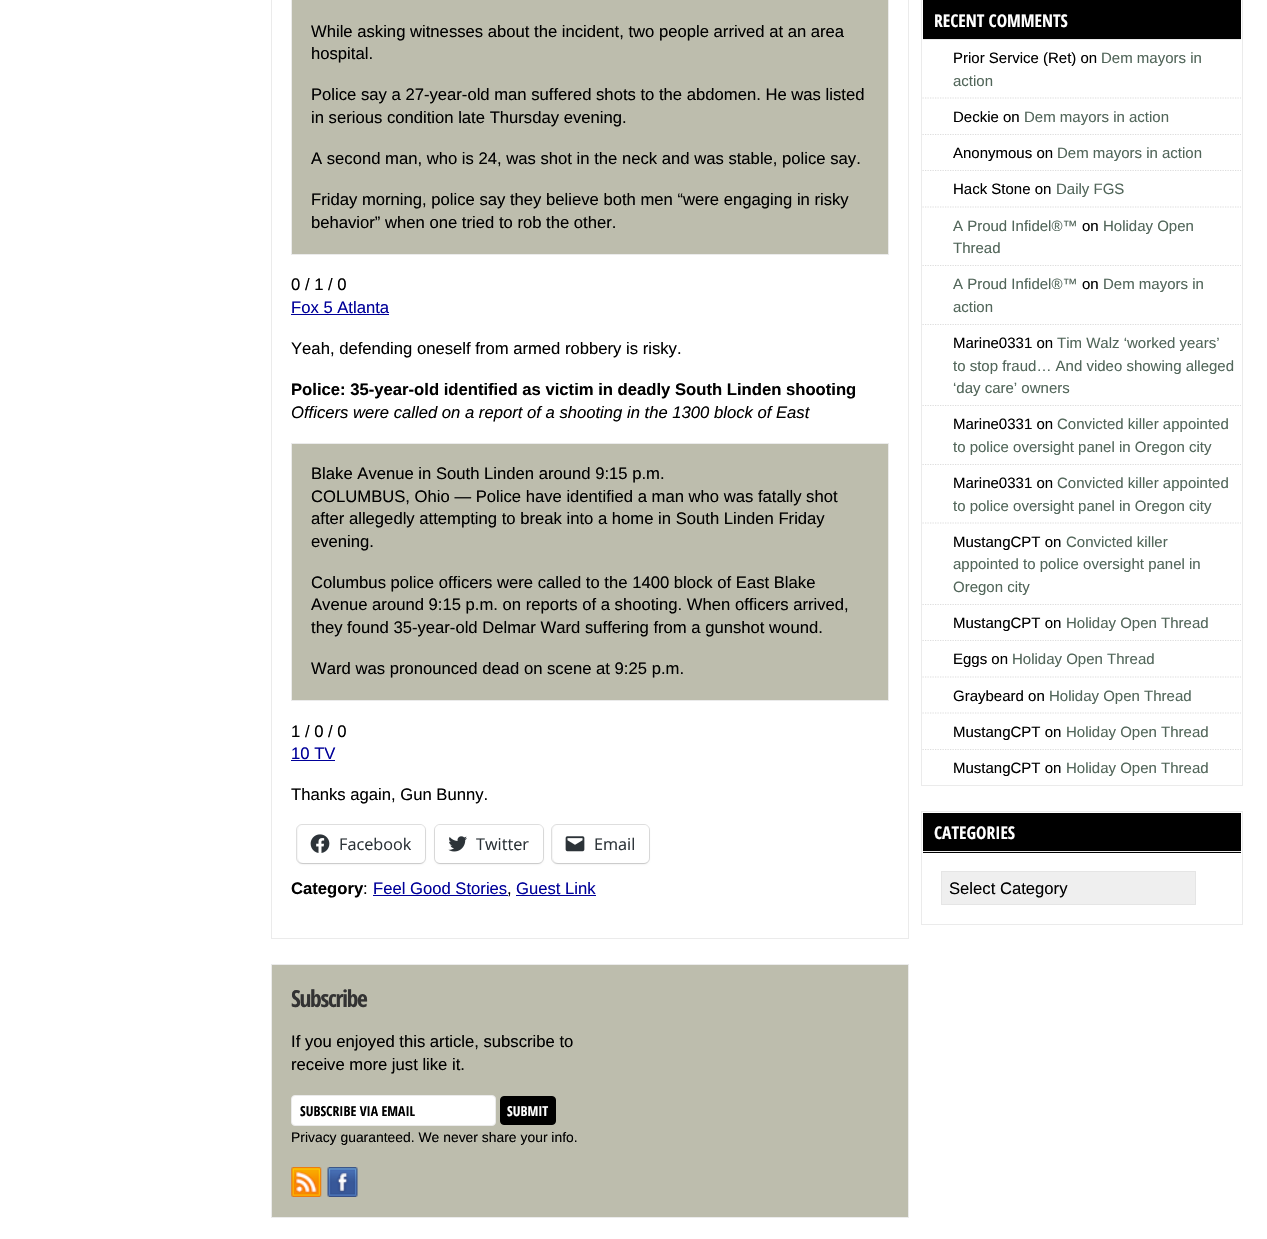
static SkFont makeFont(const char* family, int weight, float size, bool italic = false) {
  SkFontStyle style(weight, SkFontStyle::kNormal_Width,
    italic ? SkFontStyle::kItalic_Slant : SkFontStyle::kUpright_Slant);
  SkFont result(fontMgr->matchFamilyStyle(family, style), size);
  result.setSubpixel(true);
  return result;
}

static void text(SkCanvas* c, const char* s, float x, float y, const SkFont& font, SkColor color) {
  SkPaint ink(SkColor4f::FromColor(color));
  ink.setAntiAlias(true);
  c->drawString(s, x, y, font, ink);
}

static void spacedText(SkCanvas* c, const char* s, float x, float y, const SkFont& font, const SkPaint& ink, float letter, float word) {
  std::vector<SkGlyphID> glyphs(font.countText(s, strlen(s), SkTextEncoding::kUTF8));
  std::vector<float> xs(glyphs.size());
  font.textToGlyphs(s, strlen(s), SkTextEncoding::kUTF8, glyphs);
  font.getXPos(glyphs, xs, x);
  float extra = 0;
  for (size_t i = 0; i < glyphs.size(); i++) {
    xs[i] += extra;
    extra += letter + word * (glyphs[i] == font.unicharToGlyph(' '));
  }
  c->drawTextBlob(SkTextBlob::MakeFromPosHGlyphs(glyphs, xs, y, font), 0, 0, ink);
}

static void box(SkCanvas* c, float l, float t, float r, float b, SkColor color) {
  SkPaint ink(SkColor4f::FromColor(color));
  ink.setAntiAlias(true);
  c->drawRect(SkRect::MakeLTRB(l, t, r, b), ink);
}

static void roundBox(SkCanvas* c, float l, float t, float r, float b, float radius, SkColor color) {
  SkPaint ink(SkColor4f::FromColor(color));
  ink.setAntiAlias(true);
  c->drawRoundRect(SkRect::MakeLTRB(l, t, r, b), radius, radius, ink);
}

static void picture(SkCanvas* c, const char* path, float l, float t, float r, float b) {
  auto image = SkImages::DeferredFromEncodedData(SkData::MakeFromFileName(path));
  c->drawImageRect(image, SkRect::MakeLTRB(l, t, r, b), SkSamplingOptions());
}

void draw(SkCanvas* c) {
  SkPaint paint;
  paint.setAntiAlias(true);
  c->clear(0xffffffff);
  paint.setStyle(SkPaint::kStroke_Style);
  paint.setStrokeWidth(1);
  paint.setColor(0xffebebeb);
  c->drawRect(SkRect::MakeLTRB(271.5f, -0.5f, 908.5f, 938.5f), paint);
  paint.setStyle(SkPaint::kFill_Style);
  paint.setColor(0xffbdbdad);
  c->drawRect(SkRect::MakeLTRB(291.5f, -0.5f, 888.5f, 254.5f), paint);
  paint.setStyle(SkPaint::kStroke_Style);
  paint.setColor(0xffebebeb);
  c->drawRect(SkRect::MakeLTRB(291.5f, -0.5f, 888.5f, 254.5f), paint);
  SkFont face1 = makeFont("Liberation Sans", 400, 16.65f);
  text(c, "While asking witnesses about the incident, two people arrived at an area", 311, 37, face1, 0xff000000);
  text(c, "hospital.", 311, 59, face1, 0xff000000);
  text(c, "Police say a 27-year-old man suffered shots to the abdomen. He was listed", 311, 100, face1, 0xff000000);
  text(c, "in serious condition late Thursday evening.", 311, 123, face1, 0xff000000);
  text(c, "A second man, who is 24, was shot in the neck and was stable, police say.", 311, 164, face1, 0xff000000);
  text(c, "Friday morning, police say they believe both men “were engaging in risky", 311, 205, face1, 0xff000000);
  text(c, "behavior” when one tried to rob the other.", 311, 228, face1, 0xff000000);
  text(c, "0 / 1 / 0", 291, 290, face1, 0xff000000);
  text(c, "Fox 5 Atlanta", 291, 313, face1, 0xff000099);
  box(c, 291, 314, 389, 315, 0xff000099);
  text(c, "Yeah, defending oneself from armed robbery is risky.", 291, 354, face1, 0xff000000);
  SkFont face2 = makeFont("Liberation Sans", 700, 16.65f);
  text(c, "Police: 35-year-old identified as victim in deadly South Linden shooting", 291, 395, face2, 0xff000000);
  SkFont face3 = makeFont("Liberation Sans", 400, 16.65f, true);
  text(c, "Officers were called on a report of a shooting in the 1300 block of East", 291, 418, face3, 0xff000000);
  paint.setStyle(SkPaint::kFill_Style);
  paint.setColor(0xffbdbdad);
  c->drawRect(SkRect::MakeLTRB(291.5f, 443.5f, 888.5f, 700.5f), paint);
  paint.setStyle(SkPaint::kStroke_Style);
  paint.setColor(0xffebebeb);
  c->drawRect(SkRect::MakeLTRB(291.5f, 443.5f, 888.5f, 700.5f), paint);
  text(c, "Blake Avenue in South Linden around 9:15 p.m.", 311, 479, face1, 0xff000000);
  text(c, "COLUMBUS, Ohio — Police have identified a man who was fatally shot", 311, 502, face1, 0xff000000);
  text(c, "after allegedly attempting to break into a home in South Linden Friday", 311, 524, face1, 0xff000000);
  text(c, "evening.", 311, 547, face1, 0xff000000);
  text(c, "Columbus police officers were called to the 1400 block of East Blake", 311, 588, face1, 0xff000000);
  text(c, "Avenue around 9:15 p.m. on reports of a shooting. When officers arrived,", 311, 610, face1, 0xff000000);
  text(c, "they found 35-year-old Delmar Ward suffering from a gunshot wound.", 311, 633, face1, 0xff000000);
  text(c, "Ward was pronounced dead on scene at 9:25 p.m.", 311, 674, face1, 0xff000000);
  text(c, "1 / 0 / 0", 291, 737, face1, 0xff000000);
  text(c, "10 TV", 291, 759, face1, 0xff000099);
  box(c, 291, 760, 335, 761, 0xff000099);
  text(c, "Thanks again, Gun Bunny.", 291, 800, face1, 0xff000000);
  paint.setColor(0xffe0e0e0);
  c->drawRoundRect(SkRect::MakeLTRB(296.5f, 824.5f, 425.5f, 863.5f), 5.5f, 5.5f, paint);
  paint.setStyle(SkPaint::kFill_Style);
  paint.setColor(0x1f000000);
  paint.setMaskFilter(SkMaskFilter::MakeBlur(kNormal_SkBlurStyle, 1));
  c->drawRoundRect(SkRect::MakeLTRB(298, 826, 425, 864), 5, 5, paint);
  paint.setMaskFilter(nullptr);
  roundBox(c, 298, 825, 425, 863, 5, 0xffffffff);
  picture(c, "img_01.png", 310, 834, 330, 853);
  SkFont face4 = makeFont("Open Sans", 400, 16.25f);
  text(c, "Facebook", 339, 850, face4, 0xff2c3338);
  paint.setStyle(SkPaint::kStroke_Style);
  paint.setColor(0xffe0e0e0);
  c->drawRoundRect(SkRect::MakeLTRB(434.5f, 824.5f, 543.5f, 863.5f), 5.5f, 5.5f, paint);
  paint.setStyle(SkPaint::kFill_Style);
  paint.setColor(0x1f000000);
  paint.setMaskFilter(SkMaskFilter::MakeBlur(kNormal_SkBlurStyle, 1));
  c->drawRoundRect(SkRect::MakeLTRB(435, 826, 543, 864), 5, 5, paint);
  paint.setMaskFilter(nullptr);
  roundBox(c, 435, 825, 543, 863, 5, 0xffffffff);
  picture(c, "img_02.png", 448, 836, 467, 852);
  text(c, "Twitter", 476, 850, face4, 0xff2c3338);
  paint.setStyle(SkPaint::kStroke_Style);
  paint.setColor(0xffe0e0e0);
  c->drawRoundRect(SkRect::MakeLTRB(551.5f, 824.5f, 649.5f, 863.5f), 5.5f, 5.5f, paint);
  paint.setStyle(SkPaint::kFill_Style);
  paint.setColor(0x1f000000);
  paint.setMaskFilter(SkMaskFilter::MakeBlur(kNormal_SkBlurStyle, 1));
  c->drawRoundRect(SkRect::MakeLTRB(553, 826, 649, 864), 5, 5, paint);
  paint.setMaskFilter(nullptr);
  roundBox(c, 553, 825, 649, 863, 5, 0xffffffff);
  picture(c, "img_03.png", 565, 836, 585, 852);
  text(c, "Email", 594, 850, face4, 0xff2c3338);
  text(c, "Category", 291, 894, face2, 0xff000000);
  text(c, ":", 363, 894, face1, 0xff000000);
  text(c, "Feel Good Stories", 373, 894, face1, 0xff000099);
  box(c, 373, 895, 508, 896, 0xff000099);
  text(c, "Guest Link", 516, 894, face1, 0xff000099);
  box(c, 516, 895, 596, 896, 0xff000099);
  text(c, ",", 507, 894, face1, 0xff000000);
  paint.setColor(0xffbdbdad);
  c->drawRect(SkRect::MakeLTRB(271.5f, 964.5f, 908.5f, 1217.5f), paint);
  paint.setStyle(SkPaint::kStroke_Style);
  paint.setColor(0xffebebeb);
  c->drawRect(SkRect::MakeLTRB(271.5f, 964.5f, 908.5f, 1217.5f), paint);
  SkFont face5 = makeFont("Open Sans Condensed", 700, 23.5f);
  paint.setStyle(SkPaint::kFill_Style);
  paint.setColor(0xff333333);
  spacedText(c, "Subscribe", 291, 1007, face5, paint, -1.25f, 0);
  text(c, "If you enjoyed this article, subscribe to", 291, 1047, face1, 0xff000000);
  text(c, "receive more just like it.", 291, 1070, face1, 0xff000000);
  paint.setColor(0xffffffff);
  c->drawRoundRect(SkRect::MakeLTRB(291.5f, 1095.5f, 495.5f, 1125.5f), 3.5f, 3.5f, paint);
  paint.setStyle(SkPaint::kStroke_Style);
  paint.setColor(0xffebebeb);
  c->drawRoundRect(SkRect::MakeLTRB(291.5f, 1095.5f, 495.5f, 1125.5f), 3.5f, 3.5f, paint);
  SkFont face6 = makeFont("Open Sans Condensed", 700, 13.75f);
  text(c, "SUBSCRIBE VIA EMAIL", 300, 1116, face6, 0xff000000);
  paint.setStyle(SkPaint::kFill_Style);
  paint.setColor(0xff000000);
  c->drawRoundRect(SkRect::MakeLTRB(500.5f, 1096.5f, 555.5f, 1124.5f), 3.5f, 3.5f, paint);
  paint.setStyle(SkPaint::kStroke_Style);
  c->drawRoundRect(SkRect::MakeLTRB(500.5f, 1096.5f, 555.5f, 1124.5f), 3.5f, 3.5f, paint);
  text(c, "SUBMIT", 507, 1116, face6, 0xffffffff);
  SkFont face7 = makeFont("Liberation Sans", 400, 13.9f);
  text(c, "Privacy guaranteed. We never share your info.", 291, 1142, face7, 0xff000000);
  picture(c, "img_04.png", 291, 1167, 322, 1197);
  picture(c, "img_05.png", 327, 1167, 358, 1197);
  paint.setColor(0xffebebeb);
  c->drawRect(SkRect::MakeLTRB(921.5f, -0.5f, 1242.5f, 785.5f), paint);
  box(c, 923, 0, 1241, 39, 0xff000000);
  box(c, 923, 39, 1241, 40, 0xffebebeb);
  SkFont face8 = makeFont("Open Sans Condensed", 700, 17.5f);
  text(c, "RECENT COMMENTS", 934, 27, face8, 0xffffffff);
  paint.setStrokeWidth(1.2f);
  paint.setColor(0xffdddddd);
  paint.setPathEffect(SkDashPathEffect::Make({{1.25f, 1.25f}}, 0));
  c->drawPath(SkPathBuilder().moveTo(922.5f, 98).lineTo(1241, 98).detach(), paint);
  paint.setPathEffect(nullptr);
  SkFont face9 = makeFont("Liberation Sans", 400, 15);
  text(c, "Prior Service (Ret) on", 953, 63, face9, 0xff000000);
  text(c, "Dem mayors in", 1101, 63, face9, 0xff52665a);
  text(c, "action", 953, 86, face9, 0xff52665a);
  paint.setPathEffect(SkDashPathEffect::Make({{1.25f, 1.25f}}, 0));
  c->drawPath(SkPathBuilder().moveTo(922.5f, 134.5f).lineTo(1241, 134.5f).detach(), paint);
  paint.setPathEffect(nullptr);
  text(c, "Deckie on", 953, 122, face9, 0xff000000);
  text(c, "Dem mayors in action", 1024, 122, face9, 0xff52665a);
  paint.setPathEffect(SkDashPathEffect::Make({{1.25f, 1.25f}}, 0));
  c->drawPath(SkPathBuilder().moveTo(922.5f, 170.5f).lineTo(1241, 170.5f).detach(), paint);
  paint.setPathEffect(nullptr);
  text(c, "Anonymous on", 953, 158, face9, 0xff000000);
  text(c, "Dem mayors in action", 1057, 158, face9, 0xff52665a);
  paint.setPathEffect(SkDashPathEffect::Make({{1.25f, 1.25f}}, 0));
  c->drawPath(SkPathBuilder().moveTo(922.5f, 207).lineTo(1241, 207).detach(), paint);
  paint.setPathEffect(nullptr);
  text(c, "Hack Stone on", 953, 194, face9, 0xff000000);
  text(c, "Daily FGS", 1056, 194, face9, 0xff52665a);
  paint.setPathEffect(SkDashPathEffect::Make({{1.25f, 1.25f}}, 0));
  c->drawPath(SkPathBuilder().moveTo(922.5f, 265.5f).lineTo(1241, 265.5f).detach(), paint);
  paint.setPathEffect(nullptr);
  text(c, "A Proud Infidel®™", 953, 231, face9, 0xff52665a);
  text(c, "on", 1082, 231, face9, 0xff000000);
  text(c, "Holiday Open", 1103, 231, face9, 0xff52665a);
  text(c, "Thread", 953, 253, face9, 0xff52665a);
  paint.setPathEffect(SkDashPathEffect::Make({{1.25f, 1.25f}}, 0));
  c->drawPath(SkPathBuilder().moveTo(922.5f, 324.5f).lineTo(1241, 324.5f).detach(), paint);
  paint.setPathEffect(nullptr);
  text(c, "A Proud Infidel®™", 953, 289, face9, 0xff52665a);
  text(c, "on", 1082, 289, face9, 0xff000000);
  text(c, "Dem mayors in", 1103, 289, face9, 0xff52665a);
  text(c, "action", 953, 312, face9, 0xff52665a);
  paint.setPathEffect(SkDashPathEffect::Make({{1.25f, 1.25f}}, 0));
  c->drawPath(SkPathBuilder().moveTo(922.5f, 405.5f).lineTo(1241, 405.5f).detach(), paint);
  paint.setPathEffect(nullptr);
  text(c, "Marine0331 on", 953, 348, face9, 0xff000000);
  text(c, "Tim Walz ‘worked years’", 1057, 348, face9, 0xff52665a);
  text(c, "to stop fraud… And video showing alleged", 953, 371, face9, 0xff52665a);
  text(c, "‘day care’ owners", 953, 393, face9, 0xff52665a);
  paint.setPathEffect(SkDashPathEffect::Make({{1.25f, 1.25f}}, 0));
  c->drawPath(SkPathBuilder().moveTo(922.5f, 464.5f).lineTo(1241, 464.5f).detach(), paint);
  paint.setPathEffect(nullptr);
  text(c, "Marine0331 on", 953, 429, face9, 0xff000000);
  text(c, "Convicted killer appointed", 1057, 429, face9, 0xff52665a);
  text(c, "to police oversight panel in Oregon city", 953, 452, face9, 0xff52665a);
  paint.setPathEffect(SkDashPathEffect::Make({{1.25f, 1.25f}}, 0));
  c->drawPath(SkPathBuilder().moveTo(922.5f, 523).lineTo(1241, 523).detach(), paint);
  paint.setPathEffect(nullptr);
  text(c, "Marine0331 on", 953, 488, face9, 0xff000000);
  text(c, "Convicted killer appointed", 1057, 488, face9, 0xff52665a);
  text(c, "to police oversight panel in Oregon city", 953, 511, face9, 0xff52665a);
  paint.setPathEffect(SkDashPathEffect::Make({{1.25f, 1.25f}}, 0));
  c->drawPath(SkPathBuilder().moveTo(922.5f, 604.5f).lineTo(1241, 604.5f).detach(), paint);
  paint.setPathEffect(nullptr);
  text(c, "MustangCPT on", 953, 547, face9, 0xff000000);
  text(c, "Convicted killer", 1066, 547, face9, 0xff52665a);
  text(c, "appointed to police oversight panel in", 953, 569, face9, 0xff52665a);
  text(c, "Oregon city", 953, 592, face9, 0xff52665a);
  paint.setPathEffect(SkDashPathEffect::Make({{1.25f, 1.25f}}, 0));
  c->drawPath(SkPathBuilder().moveTo(922.5f, 640.5f).lineTo(1241, 640.5f).detach(), paint);
  paint.setPathEffect(nullptr);
  text(c, "MustangCPT on", 953, 628, face9, 0xff000000);
  text(c, "Holiday Open Thread", 1066, 628, face9, 0xff52665a);
  paint.setPathEffect(SkDashPathEffect::Make({{1.25f, 1.25f}}, 0));
  c->drawPath(SkPathBuilder().moveTo(922.5f, 677).lineTo(1241, 677).detach(), paint);
  paint.setPathEffect(nullptr);
  text(c, "Eggs on", 953, 664, face9, 0xff000000);
  text(c, "Holiday Open Thread", 1012, 664, face9, 0xff52665a);
  paint.setPathEffect(SkDashPathEffect::Make({{1.25f, 1.25f}}, 0));
  c->drawPath(SkPathBuilder().moveTo(922.5f, 713).lineTo(1241, 713).detach(), paint);
  paint.setPathEffect(nullptr);
  text(c, "Graybeard on", 953, 701, face9, 0xff000000);
  text(c, "Holiday Open Thread", 1049, 701, face9, 0xff52665a);
  paint.setPathEffect(SkDashPathEffect::Make({{1.25f, 1.25f}}, 0));
  c->drawPath(SkPathBuilder().moveTo(922.5f, 749.5f).lineTo(1241, 749.5f).detach(), paint);
  paint.setPathEffect(nullptr);
  text(c, "MustangCPT on", 953, 737, face9, 0xff000000);
  text(c, "Holiday Open Thread", 1066, 737, face9, 0xff52665a);
  text(c, "MustangCPT on", 953, 773, face9, 0xff000000);
  text(c, "Holiday Open Thread", 1066, 773, face9, 0xff52665a);
  paint.setStrokeWidth(1);
  paint.setColor(0xffebebeb);
  c->drawRect(SkRect::MakeLTRB(921.5f, 811.5f, 1242.5f, 924.5f), paint);
  box(c, 923, 813, 1241, 853, 0xff000000);
  box(c, 923, 851, 1241, 852, 0xffebebeb);
  text(c, "CATEGORIES", 934, 839, face8, 0xffffffff);
  paint.setStyle(SkPaint::kFill_Style);
  paint.setColor(0xffefefef);
  c->drawRect(SkRect::MakeLTRB(941.5f, 871.5f, 1195.5f, 904.5f), paint);
  paint.setStyle(SkPaint::kStroke_Style);
  paint.setColor(0xffe5e5e5);
  c->drawRect(SkRect::MakeLTRB(941.5f, 871.5f, 1195.5f, 904.5f), paint);
  text(c, "Select Category", 949, 894, face1, 0xff000000);
}
